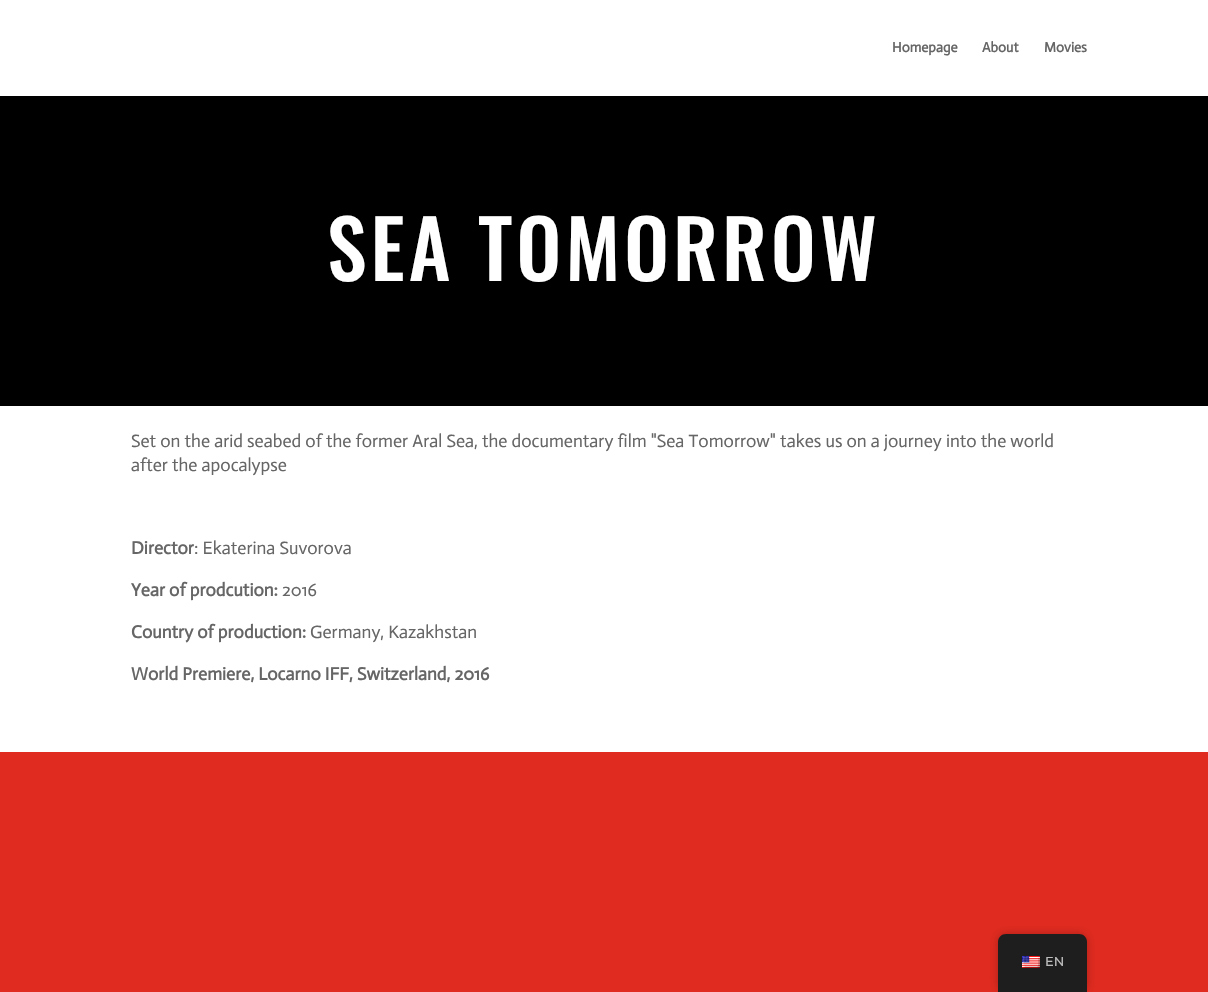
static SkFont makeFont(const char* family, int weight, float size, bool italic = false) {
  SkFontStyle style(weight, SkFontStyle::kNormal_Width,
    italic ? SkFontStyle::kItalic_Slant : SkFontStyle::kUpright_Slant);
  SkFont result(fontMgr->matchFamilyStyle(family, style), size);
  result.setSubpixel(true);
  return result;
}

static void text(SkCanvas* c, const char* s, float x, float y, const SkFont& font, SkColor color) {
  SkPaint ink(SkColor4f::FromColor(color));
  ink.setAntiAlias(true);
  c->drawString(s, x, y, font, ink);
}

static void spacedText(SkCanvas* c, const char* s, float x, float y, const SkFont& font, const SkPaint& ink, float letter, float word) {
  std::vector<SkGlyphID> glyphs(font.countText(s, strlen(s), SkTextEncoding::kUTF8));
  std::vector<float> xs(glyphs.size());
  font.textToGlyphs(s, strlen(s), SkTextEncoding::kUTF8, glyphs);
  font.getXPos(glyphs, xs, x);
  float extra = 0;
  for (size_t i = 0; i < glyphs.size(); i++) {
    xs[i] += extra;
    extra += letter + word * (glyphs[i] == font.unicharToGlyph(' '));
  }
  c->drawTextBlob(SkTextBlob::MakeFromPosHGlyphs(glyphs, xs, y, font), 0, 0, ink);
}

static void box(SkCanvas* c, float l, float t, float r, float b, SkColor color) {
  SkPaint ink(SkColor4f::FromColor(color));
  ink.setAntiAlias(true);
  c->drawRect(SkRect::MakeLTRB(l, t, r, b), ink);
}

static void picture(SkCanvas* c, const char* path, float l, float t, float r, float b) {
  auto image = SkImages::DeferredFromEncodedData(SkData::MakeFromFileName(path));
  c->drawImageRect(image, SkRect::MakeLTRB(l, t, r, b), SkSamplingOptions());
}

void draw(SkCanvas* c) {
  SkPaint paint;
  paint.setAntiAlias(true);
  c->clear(0xffffffff);
  SkFont face1 = makeFont("Actor", 700, 14);
  text(c, "Homepage", 892, 52, face1, 0xff666666);
  text(c, "About", 982, 52, face1, 0xff666666);
  text(c, "Movies", 1044, 52, face1, 0xff666666);
  box(c, 0, 96, 1208, 406, 0xff000000);
  SkFont face2 = makeFont("Oswald", 500, 80);
  paint.setColor(0xffffffff);
  spacedText(c, "SEA TOMORROW", 327, 281, face2, paint, 4, 0);
  SkFont face3 = makeFont("Actor", 400, 18);
  text(c, "Set on the arid seabed of the former Aral Sea, the documentary film \"Sea Tomorrow\" takes us on a journey into the world", 131, 447, face3, 0xff666666);
  text(c, "after the apocalypse", 131, 471, face3, 0xff666666);
  SkFont face4 = makeFont("Actor", 700, 18);
  text(c, "Director", 131, 554, face4, 0xff666666);
  text(c, ": Ekaterina Suvorova", 194, 554, face3, 0xff666666);
  text(c, "Year of prodcution:", 131, 596, face4, 0xff666666);
  text(c, "2016", 282, 596, face3, 0xff666666);
  text(c, "Country of production:", 131, 638, face4, 0xff666666);
  text(c, "Germany, Kazakhstan", 310, 638, face3, 0xff666666);
  text(c, "World Premiere, Locarno IFF, Switzerland, 2016", 131, 680, face4, 0xff666666);
  box(c, 0, 752, 1208, 992, 0xffe02b20);
  paint.setColor(0x40000000);
  paint.setMaskFilter(SkMaskFilter::MakeBlur(kNormal_SkBlurStyle, 4));
  c->drawRoundRect(SkRect::MakeLTRB(998, 934, 1087, 992), 8, 8, paint);
  paint.setMaskFilter(nullptr);
  paint.setColor(0xff1e1e1e);
  c->drawPath(SkPathBuilder().moveTo(1006, 934).lineTo(1079, 934).cubicTo(1083.5f, 934, 1087, 937.5f, 1087, 942).lineTo(1087, 992).lineTo(998, 992).lineTo(998, 942).cubicTo(998, 937.5f, 1001.5f, 934, 1006, 934).close().detach(), paint);
  picture(c, "img_01.png", 1022, 956, 1040, 968);
  SkFont face5 = makeFont("Montserrat", 100, 13);
  text(c, "EN", 1045, 966, face5, 0xffbdbdbd);
}
